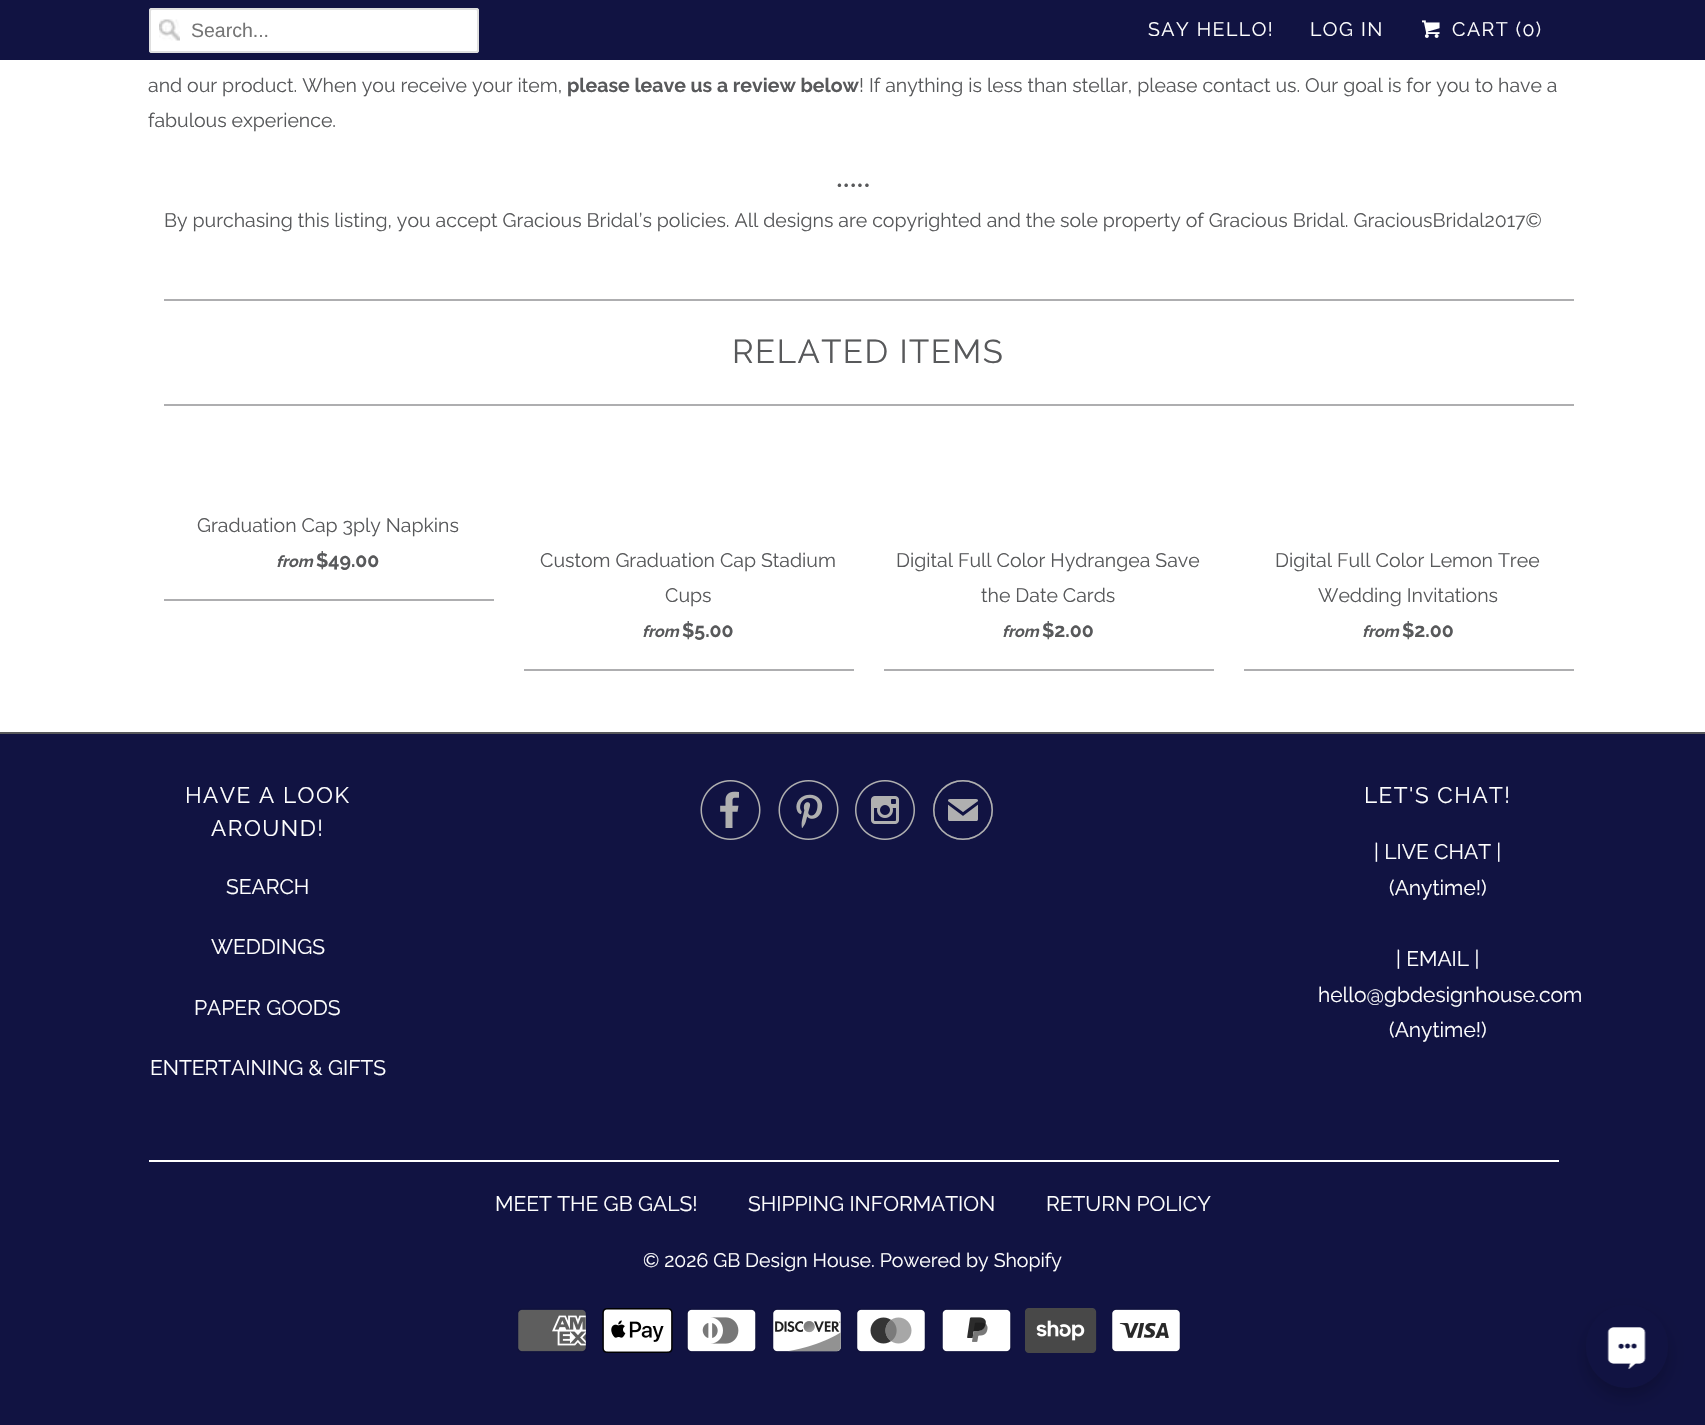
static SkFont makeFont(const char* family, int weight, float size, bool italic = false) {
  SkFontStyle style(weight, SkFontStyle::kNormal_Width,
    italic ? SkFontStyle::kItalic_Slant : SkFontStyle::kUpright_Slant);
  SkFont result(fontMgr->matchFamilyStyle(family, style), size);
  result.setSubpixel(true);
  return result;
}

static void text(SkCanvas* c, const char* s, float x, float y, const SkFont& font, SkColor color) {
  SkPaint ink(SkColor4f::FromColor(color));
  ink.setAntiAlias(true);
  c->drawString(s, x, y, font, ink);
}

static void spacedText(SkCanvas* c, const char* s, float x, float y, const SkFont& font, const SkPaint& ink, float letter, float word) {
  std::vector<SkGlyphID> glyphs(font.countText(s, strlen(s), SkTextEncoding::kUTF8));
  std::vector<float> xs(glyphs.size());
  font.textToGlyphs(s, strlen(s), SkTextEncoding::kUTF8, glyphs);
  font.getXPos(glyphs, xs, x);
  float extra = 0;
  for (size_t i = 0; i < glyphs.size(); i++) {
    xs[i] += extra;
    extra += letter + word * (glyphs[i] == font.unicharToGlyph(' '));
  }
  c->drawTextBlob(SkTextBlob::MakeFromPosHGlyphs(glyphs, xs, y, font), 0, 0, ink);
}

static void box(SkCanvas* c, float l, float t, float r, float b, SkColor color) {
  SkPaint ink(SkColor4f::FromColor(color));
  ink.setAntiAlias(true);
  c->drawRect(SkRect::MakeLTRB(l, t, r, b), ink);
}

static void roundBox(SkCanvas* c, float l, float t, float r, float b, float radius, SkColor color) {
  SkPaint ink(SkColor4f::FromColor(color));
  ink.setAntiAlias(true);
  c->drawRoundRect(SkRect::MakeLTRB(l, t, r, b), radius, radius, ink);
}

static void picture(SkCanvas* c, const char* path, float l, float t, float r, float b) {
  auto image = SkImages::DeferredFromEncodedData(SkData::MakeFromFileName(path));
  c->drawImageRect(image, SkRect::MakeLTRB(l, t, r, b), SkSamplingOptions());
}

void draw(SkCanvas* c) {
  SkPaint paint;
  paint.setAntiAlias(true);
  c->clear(0xffffffff);
  box(c, 0, 0, 1705, 60, 0xff111342);
  roundBox(c, 149, 8, 479, 53, 3, 0xffffffff);
  picture(c, "img_01.png", 159, 19, 180, 41);
  paint.setStyle(SkPaint::kStroke_Style);
  paint.setStrokeWidth(2);
  paint.setColor(0xffdfdfdf);
  c->drawRoundRect(SkRect::MakeLTRB(150, 9, 478, 52), 2, 2, paint);
  SkFont face1 = makeFont("Liberation Sans", 400, 19.5f);
  text(c, "Search...", 191, 37, face1, 0xff757575);
  SkFont face2 = makeFont("Raleway", 400, 19.5f);
  paint.setStyle(SkPaint::kFill_Style);
  paint.setColor(0xffffffff);
  spacedText(c, "SAY HELLO!", 1148, 36, face2, paint, 1.5f, 0);
  spacedText(c, "LOG IN", 1310, 36, face2, paint, 1.5f, 0);
  picture(c, "img_02.png", 1422, 20, 1440, 38);
  spacedText(c, "CART (0)", 1452, 36, face2, paint, 1.5f, 0);
  text(c, "and our product. When you receive your item,", 148, 92, face2, 0xff58595b);
  SkFont face3 = makeFont("Raleway", 700, 19.5f);
  text(c, "please leave us a review below", 567, 92, face3, 0xff58595b);
  text(c, "! If anything is less than stellar, please contact us. Our goal is for you to have a", 859, 92, face2, 0xff58595b);
  text(c, "fabulous experience.", 148, 127, face2, 0xff58595b);
  text(c, "•••••", 836, 192, face2, 0xff58595b);
  text(c, "By purchasing this listing, you accept Gracious Bridal’s policies. All designs are copyrighted and the sole property of Gracious Bridal. GraciousBridal2017©", 164, 227, face2, 0xff58595b);
  box(c, 164, 299, 1574, 301, 0xffaeaeb0);
  box(c, 164, 404, 1574, 406, 0xffaeaeb0);
  SkFont face4 = makeFont("Raleway", 400, 33);
  paint.setColor(0xff58595b);
  spacedText(c, "RELATED ITEMS", 732, 363, face4, paint, 1.5f, 0);
  box(c, 164, 599, 494, 601, 0xffaeaeb0);
  text(c, "Graduation Cap 3ply Napkins", 197, 532, face2, 0xff58595b);
  SkFont face5 = makeFont("Raleway", 700, 16, true);
  text(c, "from", 276, 567, face5, 0xff58595b);
  text(c, "$49.00", 316, 567, face3, 0xff58595b);
  box(c, 524, 669, 854, 671, 0xffaeaeb0);
  text(c, "Custom Graduation Cap Stadium", 540, 567, face2, 0xff58595b);
  text(c, "Cups", 665, 602, face2, 0xff58595b);
  text(c, "from", 642, 637, face5, 0xff58595b);
  text(c, "$5.00", 682, 637, face3, 0xff58595b);
  box(c, 884, 669, 1214, 671, 0xffaeaeb0);
  text(c, "Digital Full Color Hydrangea Save", 896, 567, face2, 0xff58595b);
  text(c, "the Date Cards", 981, 602, face2, 0xff58595b);
  text(c, "from", 1002, 637, face5, 0xff58595b);
  text(c, "$2.00", 1042, 637, face3, 0xff58595b);
  box(c, 1244, 669, 1574, 671, 0xffaeaeb0);
  text(c, "Digital Full Color Lemon Tree", 1275, 567, face2, 0xff58595b);
  text(c, "Wedding Invitations", 1318, 602, face2, 0xff58595b);
  text(c, "from", 1362, 637, face5, 0xff58595b);
  text(c, "$2.00", 1402, 637, face3, 0xff58595b);
  box(c, 0, 734, 1705, 1425, 0xff111342);
  box(c, 0, 732, 1705, 734, 0xff58595b);
  SkFont face6 = makeFont("Raleway", 400, 22.5f);
  paint.setColor(0xffffffff);
  spacedText(c, "HAVE A LOOK", 185, 803, face6, paint, 1.5f, 0);
  spacedText(c, "AROUND!", 211, 836, face6, paint, 1.5f, 0);
  SkFont face7 = makeFont("Raleway", 400, 21);
  text(c, "SEARCH", 226, 894, face7, 0xffffffff);
  text(c, "WEDDINGS", 211, 954, face7, 0xffffffff);
  text(c, "PAPER GOODS", 194, 1015, face7, 0xffffffff);
  text(c, "ENTERTAINING & GIFTS", 150, 1075, face7, 0xffffffff);
  picture(c, "img_03.png", 700, 780, 761, 840);
  picture(c, "img_04.png", 778, 780, 839, 840);
  picture(c, "img_05.png", 855, 780, 915, 840);
  SkFont face8 = makeFont("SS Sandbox", 400, 60);
  text(c, "✉", 933, 840, face8, 0xffb0b0b0);
  spacedText(c, "LET'S CHAT!", 1364, 803, face6, paint, 1.5f, 0);
  text(c, "| LIVE CHAT |", 1374, 859, face7, 0xffffffff);
  text(c, "(Anytime!)", 1389, 895, face7, 0xffffffff);
  text(c, "| EMAIL |", 1396, 966, face7, 0xffffffff);
  text(c, "hello@gbdesignhouse.com", 1318, 1002, face7, 0xffffffff);
  text(c, "(Anytime!)", 1389, 1037, face7, 0xffffffff);
  box(c, 149, 1160, 1559, 1162, 0xffffffff);
  text(c, "MEET THE GB GALS!", 495, 1211, face7, 0xffffffff);
  text(c, "SHIPPING INFORMATION", 748, 1211, face7, 0xffffffff);
  text(c, "RETURN POLICY", 1046, 1211, face7, 0xffffffff);
  text(c, "© 2026 GB Design House. Powered by Shopify", 643, 1267, face2, 0xffffffff);
  picture(c, "img_06.png", 517, 1308, 587, 1353);
  picture(c, "img_07.png", 602, 1308, 673, 1353);
  picture(c, "img_08.png", 686, 1308, 757, 1353);
  picture(c, "img_09.png", 772, 1308, 842, 1353);
  picture(c, "img_10.png", 856, 1308, 926, 1353);
  picture(c, "img_11.png", 941, 1308, 1012, 1353);
  picture(c, "img_12.png", 1025, 1308, 1097, 1353);
  picture(c, "img_13.png", 1111, 1308, 1181, 1353);
  paint.setColor(0x33000000);
  paint.setMaskFilter(SkMaskFilter::MakeBlur(kNormal_SkBlurStyle, 9));
  c->drawRoundRect(SkRect::MakeLTRB(1586, 1314, 1668, 1397), 41, 41, paint);
  paint.setMaskFilter(nullptr);
  roundBox(c, 1586, 1305, 1668, 1388, 41, 0xff111342);
  picture(c, "img_14.png", 1607, 1327, 1646, 1369);
}
